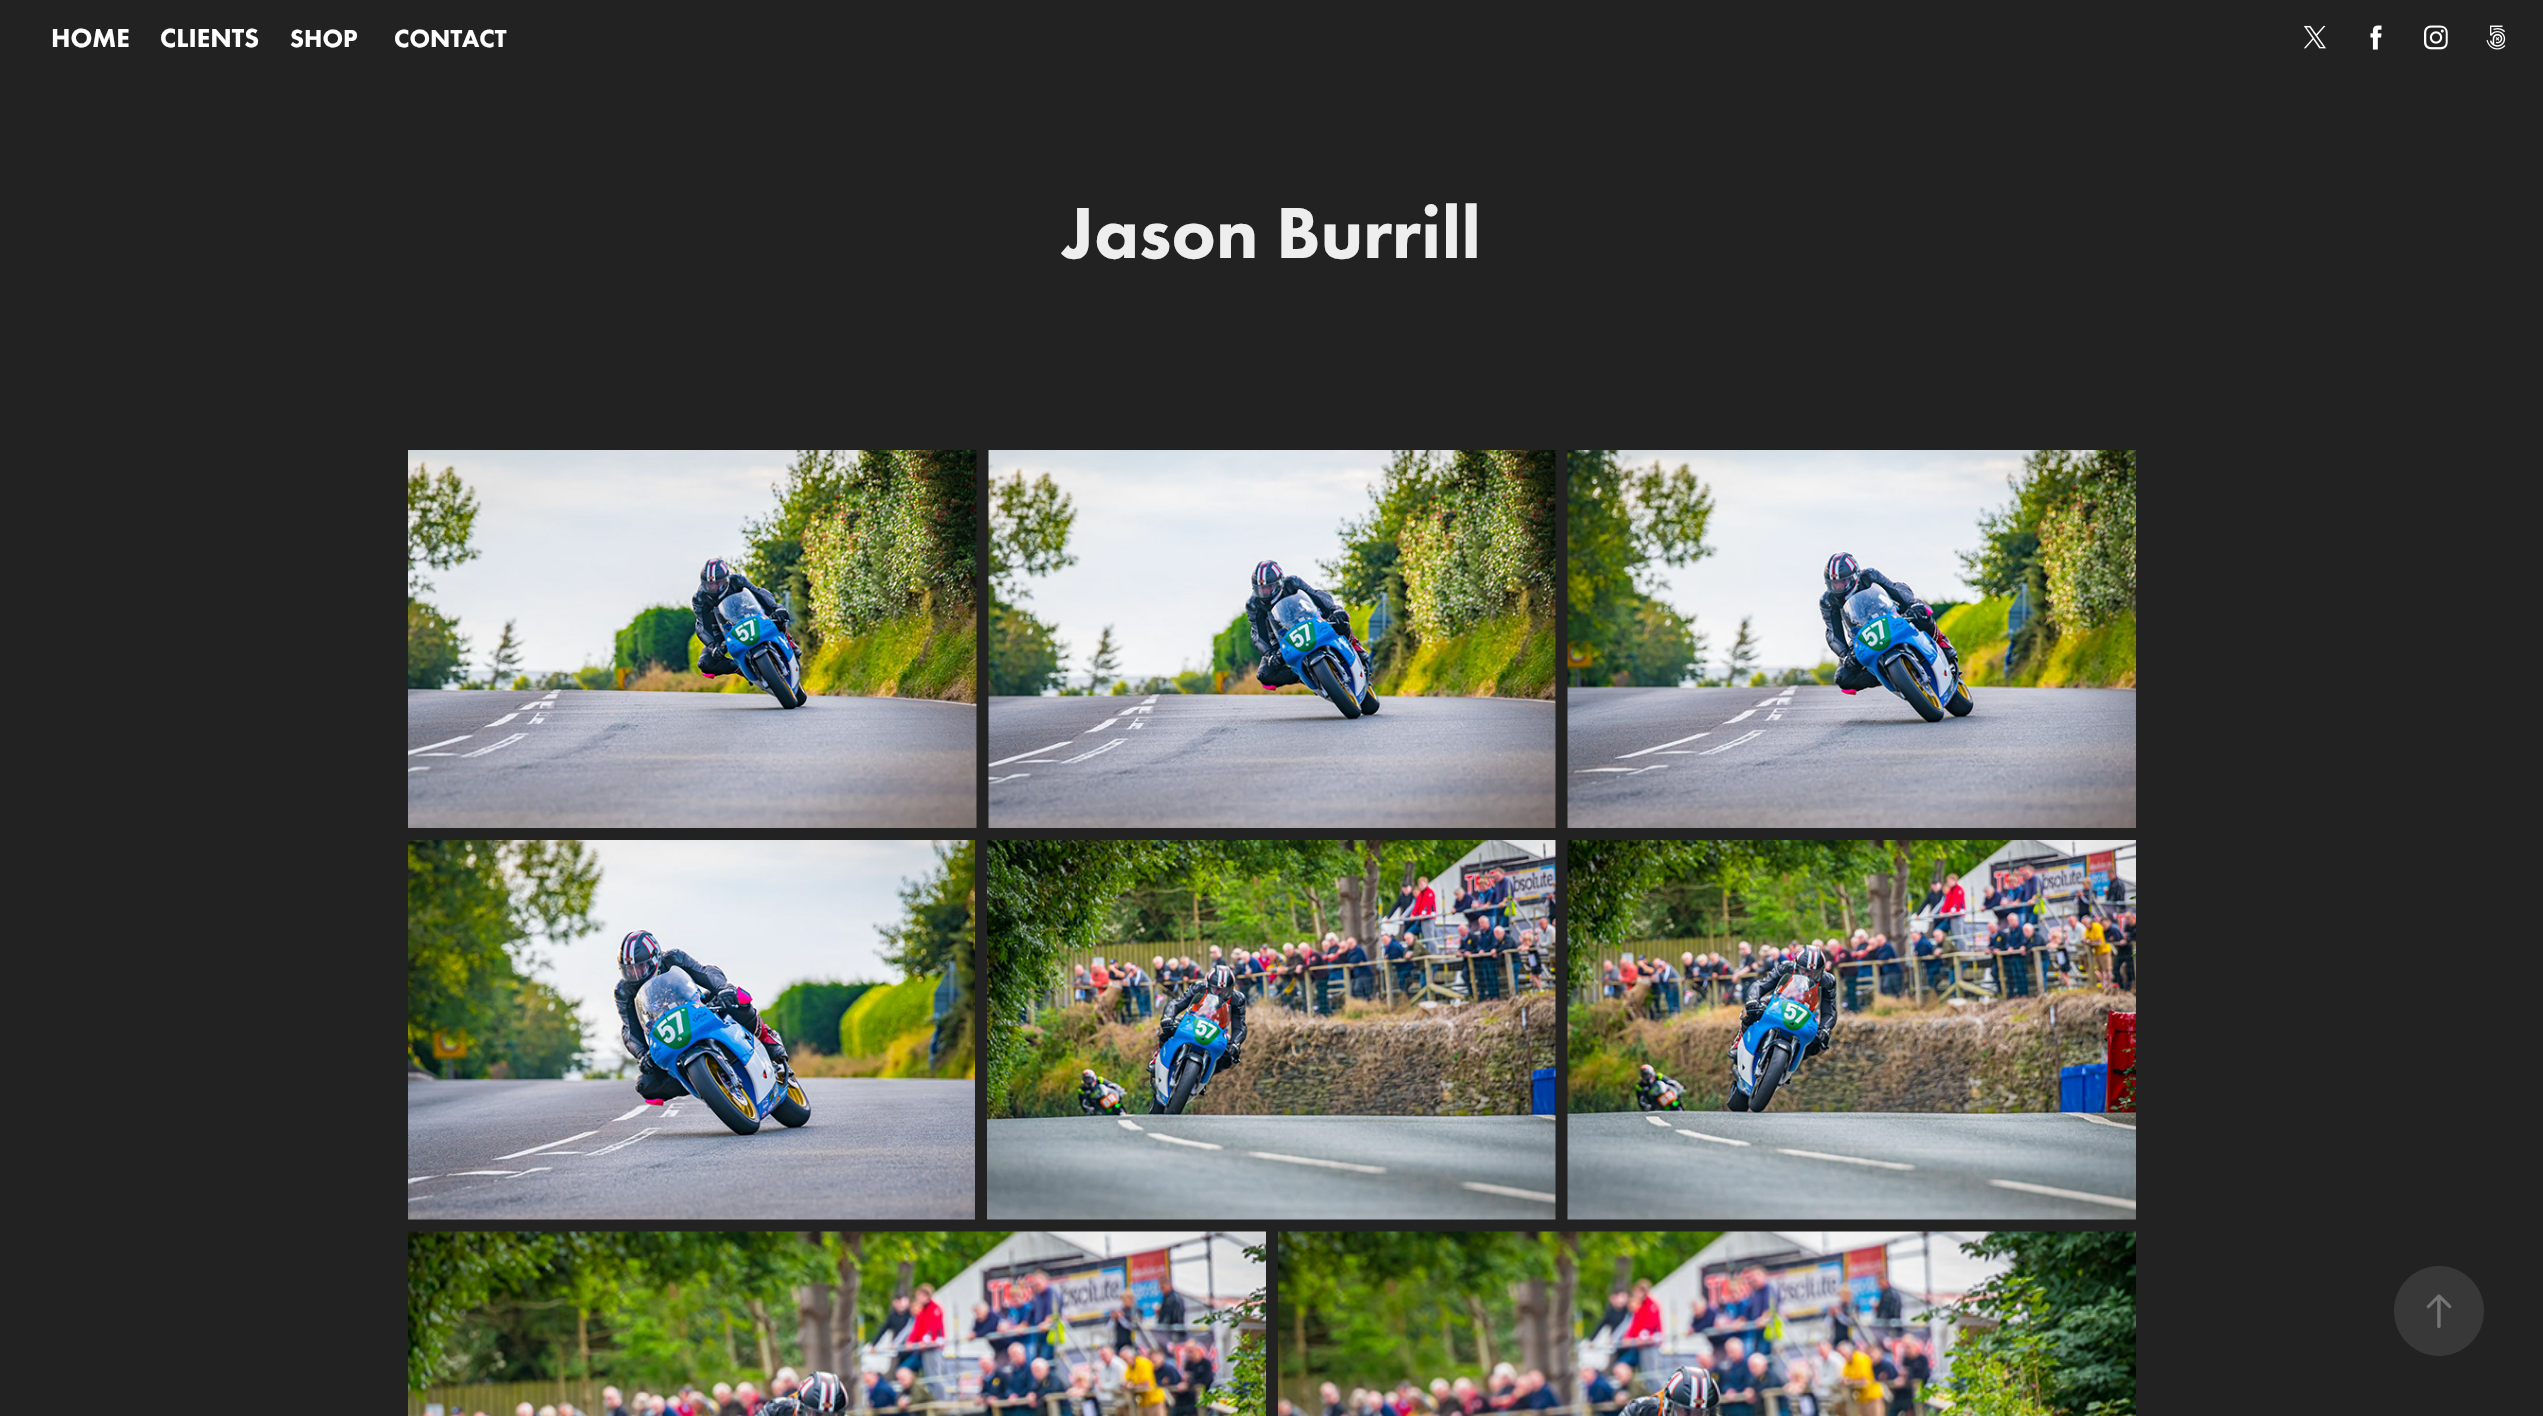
static SkFont makeFont(const char* family, int weight, float size, bool italic = false) {
  SkFontStyle style(weight, SkFontStyle::kNormal_Width,
    italic ? SkFontStyle::kItalic_Slant : SkFontStyle::kUpright_Slant);
  SkFont result(fontMgr->matchFamilyStyle(family, style), size);
  result.setSubpixel(true);
  return result;
}

static void text(SkCanvas* c, const char* s, float x, float y, const SkFont& font, SkColor color) {
  SkPaint ink(SkColor4f::FromColor(color));
  ink.setAntiAlias(true);
  c->drawString(s, x, y, font, ink);
}

static void picture(SkCanvas* c, const char* path, float l, float t, float r, float b) {
  auto image = SkImages::DeferredFromEncodedData(SkData::MakeFromFileName(path));
  c->drawImageRect(image, SkRect::MakeLTRB(l, t, r, b), SkSamplingOptions());
}

void draw(SkCanvas* c) {
  SkPaint paint;
  paint.setAntiAlias(true);
  c->clear(0xff222222);
  SkFont face1 = makeFont("Futura PT", 900, 27);
  text(c, "HOME", 51, 47, face1, 0xffffffff);
  text(c, "CLIENTS", 160, 47, face1, 0xffffffff);
  SkFont face2 = makeFont("Futura PT", 900, 25.5f);
  text(c, "SHOP", 290, 47, face2, 0xffffffff);
  text(c, "CONTACT", 394, 47, face2, 0xffffffff);
  picture(c, "img_01.png", 2303, 25, 2326, 49);
  picture(c, "img_02.png", 2370, 25, 2382, 50);
  picture(c, "img_03.png", 2424, 25, 2448, 50);
  picture(c, "img_04.png", 2486, 25, 2506, 50);
  SkFont face3 = makeFont("Futura PT", 900, 75);
  text(c, "Jason Burrill", 1063, 258, face3, 0xffeeeeee);
  picture(c, "img_05.png", 408, 450, 977, 828);
  picture(c, "img_06.png", 988, 450, 1556, 828);
  picture(c, "img_07.png", 1567, 450, 2136, 828);
  picture(c, "img_08.png", 408, 840, 975, 1220);
  picture(c, "img_09.png", 987, 840, 1556, 1220);
  picture(c, "img_10.png", 1567, 840, 2136, 1220);
  picture(c, "img_11.png", 408, 1231, 1266, 1416);
  picture(c, "img_12.png", 1278, 1231, 2136, 1416);
  paint.setColor(0xff383838);
  c->drawCircle(2439, 1311, 45, paint);
  picture(c, "img_13.png", 2426, 1294, 2452, 1329);
}
